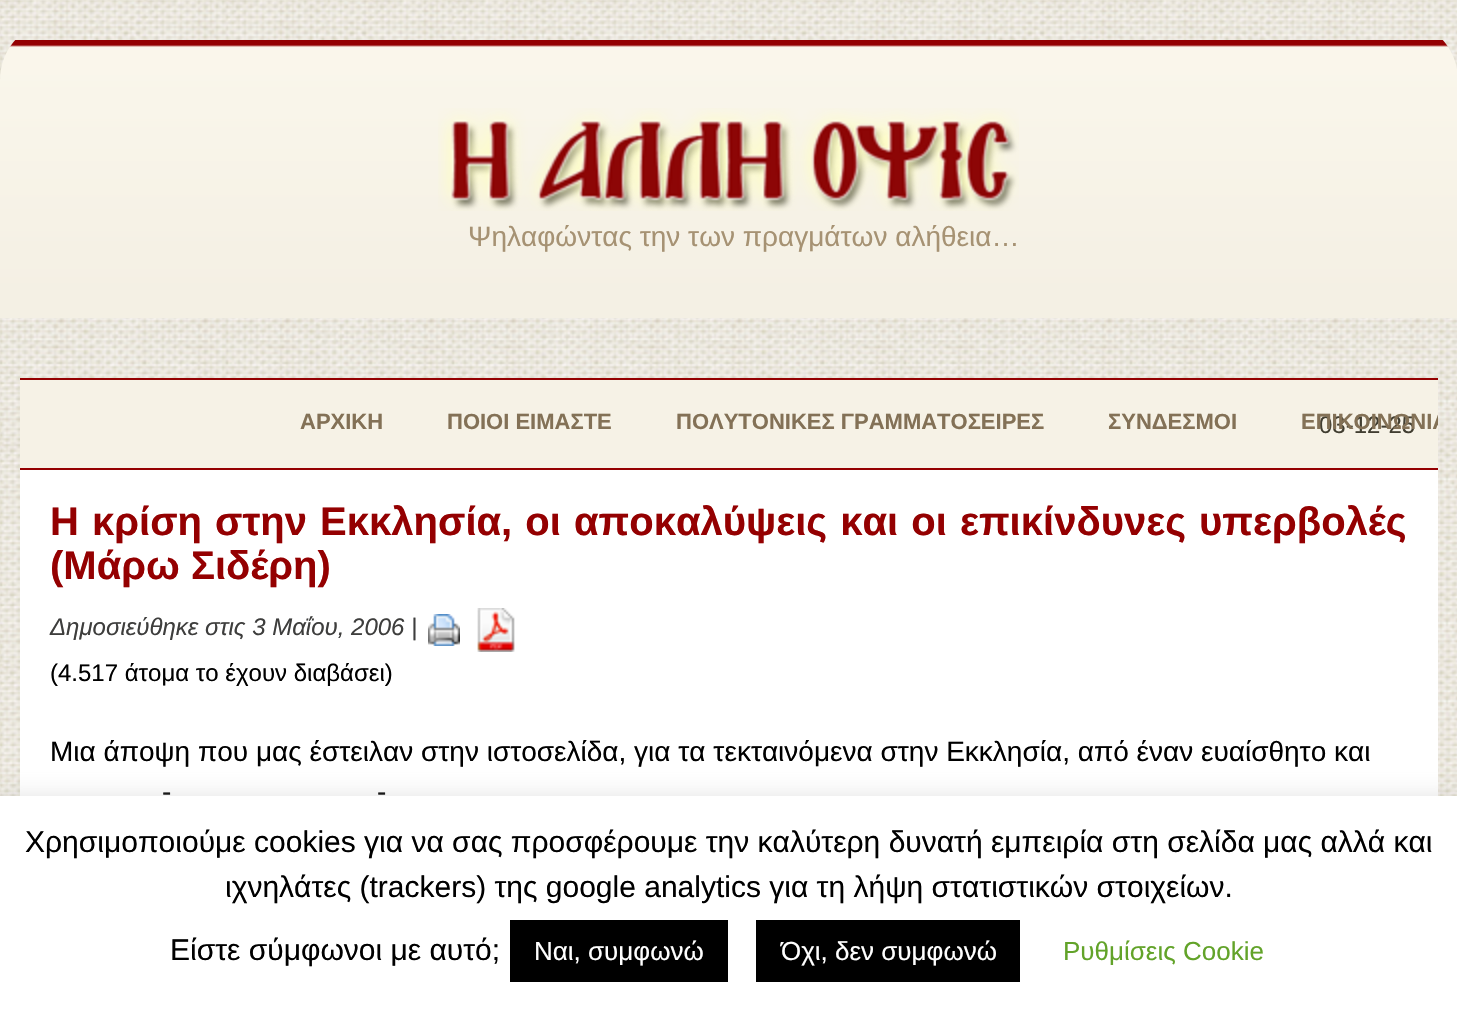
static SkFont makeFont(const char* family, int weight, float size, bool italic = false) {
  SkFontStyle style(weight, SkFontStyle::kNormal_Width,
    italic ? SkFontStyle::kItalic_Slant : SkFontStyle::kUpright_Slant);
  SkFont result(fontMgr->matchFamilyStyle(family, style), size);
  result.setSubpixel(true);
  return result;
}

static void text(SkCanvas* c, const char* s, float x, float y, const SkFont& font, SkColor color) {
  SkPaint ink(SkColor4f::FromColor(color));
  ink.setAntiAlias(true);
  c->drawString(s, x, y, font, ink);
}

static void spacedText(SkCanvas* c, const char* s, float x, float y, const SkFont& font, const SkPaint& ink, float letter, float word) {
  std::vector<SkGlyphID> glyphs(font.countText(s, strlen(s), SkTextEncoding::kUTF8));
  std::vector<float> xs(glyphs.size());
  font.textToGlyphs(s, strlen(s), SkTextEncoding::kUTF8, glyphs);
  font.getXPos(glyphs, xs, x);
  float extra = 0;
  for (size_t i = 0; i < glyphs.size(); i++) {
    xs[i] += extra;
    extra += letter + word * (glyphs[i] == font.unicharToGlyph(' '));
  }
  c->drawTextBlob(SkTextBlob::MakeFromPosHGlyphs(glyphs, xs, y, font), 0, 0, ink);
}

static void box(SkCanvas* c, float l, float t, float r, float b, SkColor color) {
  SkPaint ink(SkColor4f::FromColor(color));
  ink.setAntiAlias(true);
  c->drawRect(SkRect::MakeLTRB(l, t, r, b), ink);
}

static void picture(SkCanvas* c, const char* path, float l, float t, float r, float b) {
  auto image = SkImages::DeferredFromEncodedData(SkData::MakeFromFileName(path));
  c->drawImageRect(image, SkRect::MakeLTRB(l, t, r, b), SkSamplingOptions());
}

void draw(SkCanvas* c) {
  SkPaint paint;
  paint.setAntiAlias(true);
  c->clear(0xffffffff);
  picture(c, "img_01.png", 0, 0, 1457, 796);
  picture(c, "img_02.png", 0, 40, 1457, 318);
  picture(c, "img_03.png", 438, 108, 1019, 211);
  SkFont face1 = makeFont("Liberation Sans", 400, 28);
  text(c, "Ψηλαφώντας την των πραγμάτων αλήθεια…", 468, 246, face1, 0xffa69273);
  box(c, 20, 380, 1438, 468, 0xfff6f2e6);
  box(c, 20, 378, 1438, 380, 0xff940001);
  box(c, 20, 468, 1438, 470, 0xff940001);
  SkFont face2 = makeFont("Liberation Sans", 700, 22);
  text(c, "ΑΡΧΙΚΗ", 300, 429, face2, 0xff837156);
  text(c, "ΠΟΙΟΙ ΕΙΜΑΣΤΕ", 447, 429, face2, 0xff837156);
  text(c, "ΠΟΛΥΤΟΝΙΚΕΣ ΓΡΑΜΜΑΤΟΣΕΙΡΕΣ", 676, 429, face2, 0xff837156);
  text(c, "ΣΥΝΔΕΣΜΟΙ", 1108, 429, face2, 0xff837156);
  SkFont face3 = makeFont("Liberation Sans", 400, 24);
  text(c, "03-12-25", 1319, 433, face3, 0xff413e31);
  c->save();
  c->clipRect(SkRect::MakeLTRB(20, 380, 1438, 464));
  text(c, "ΕΠΙΚΟΙΝΩΝΙΑ", 1301, 429, face2, 0xff837156);
  c->restore();
  box(c, 20, 470, 1438, 796, 0xffffffff);
  SkFont face4 = makeFont("Liberation Sans", 700, 40);
  paint.setColor(0xff940001);
  spacedText(c, "Η κρίση στην Εκκλησία, οι αποκαλύψεις και οι επικίνδυνες υπερβολές", 50, 535, face4, paint, 0, 2);
  text(c, "(Μάρω Σιδέρη)", 50, 579, face4, 0xff940001);
  SkFont face5 = makeFont("Liberation Sans", 400, 24, true);
  text(c, "Δημοσιεύθηκε στις 3 Μαΐου, 2006 |", 50, 635, face5, 0xff3e3e3d);
  picture(c, "img_04.png", 428, 614, 460, 646);
  picture(c, "img_05.png", 477, 608, 515, 652);
  text(c, "(4.517 άτομα το έχουν διαβάσει)", 50, 681, face3, 0xff000000);
  text(c, "Μια άποψη που μας έστειλαν στην ιστοσελίδα, για τα τεκταινόμενα στην Εκκλησία, από έναν ευαίσθητο και", 50, 761, face1, 0xff000000);
  text(c, "-", 162, 801, face1, 0xff000000);
  text(c, "-", 377, 801, face1, 0xff000000);
  paint.setColor(0x4dacabab);
  paint.setMaskFilter(SkMaskFilter::MakeBlur(kNormal_SkBlurStyle, 10));
  c->drawRect(SkRect::MakeLTRB(0, 794, 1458, 1014), paint);
  paint.setMaskFilter(nullptr);
  box(c, 0, 796, 1457, 1016, 0xffffffff);
  SkFont face6 = makeFont("Liberation Sans", 400, 30);
  text(c, "Χρησιμοποιούμε cookies για να σας προσφέρουμε την καλύτερη δυνατή εμπειρία στη σελίδα μας αλλά και", 25, 852, face6, 0xff000000);
  text(c, "ιχνηλάτες (trackers) της google analytics για τη λήψη στατιστικών στοιχείων.", 225, 897, face6, 0xff000000);
  text(c, "Είστε σύμφωνοι με αυτό;", 170, 960, face6, 0xff000000);
  box(c, 510, 920, 728, 982, 0xff000000);
  SkFont face7 = makeFont("Liberation Sans", 400, 26);
  text(c, "Ναι, συμφωνώ", 534, 960, face7, 0xffffffff);
  box(c, 756, 920, 1020, 982, 0xff000000);
  text(c, "Όχι, δεν συμφωνώ", 781, 960, face7, 0xffffffff);
  text(c, "Ρυθμίσεις Cookie", 1063, 960, face7, 0xff62a329);
}
